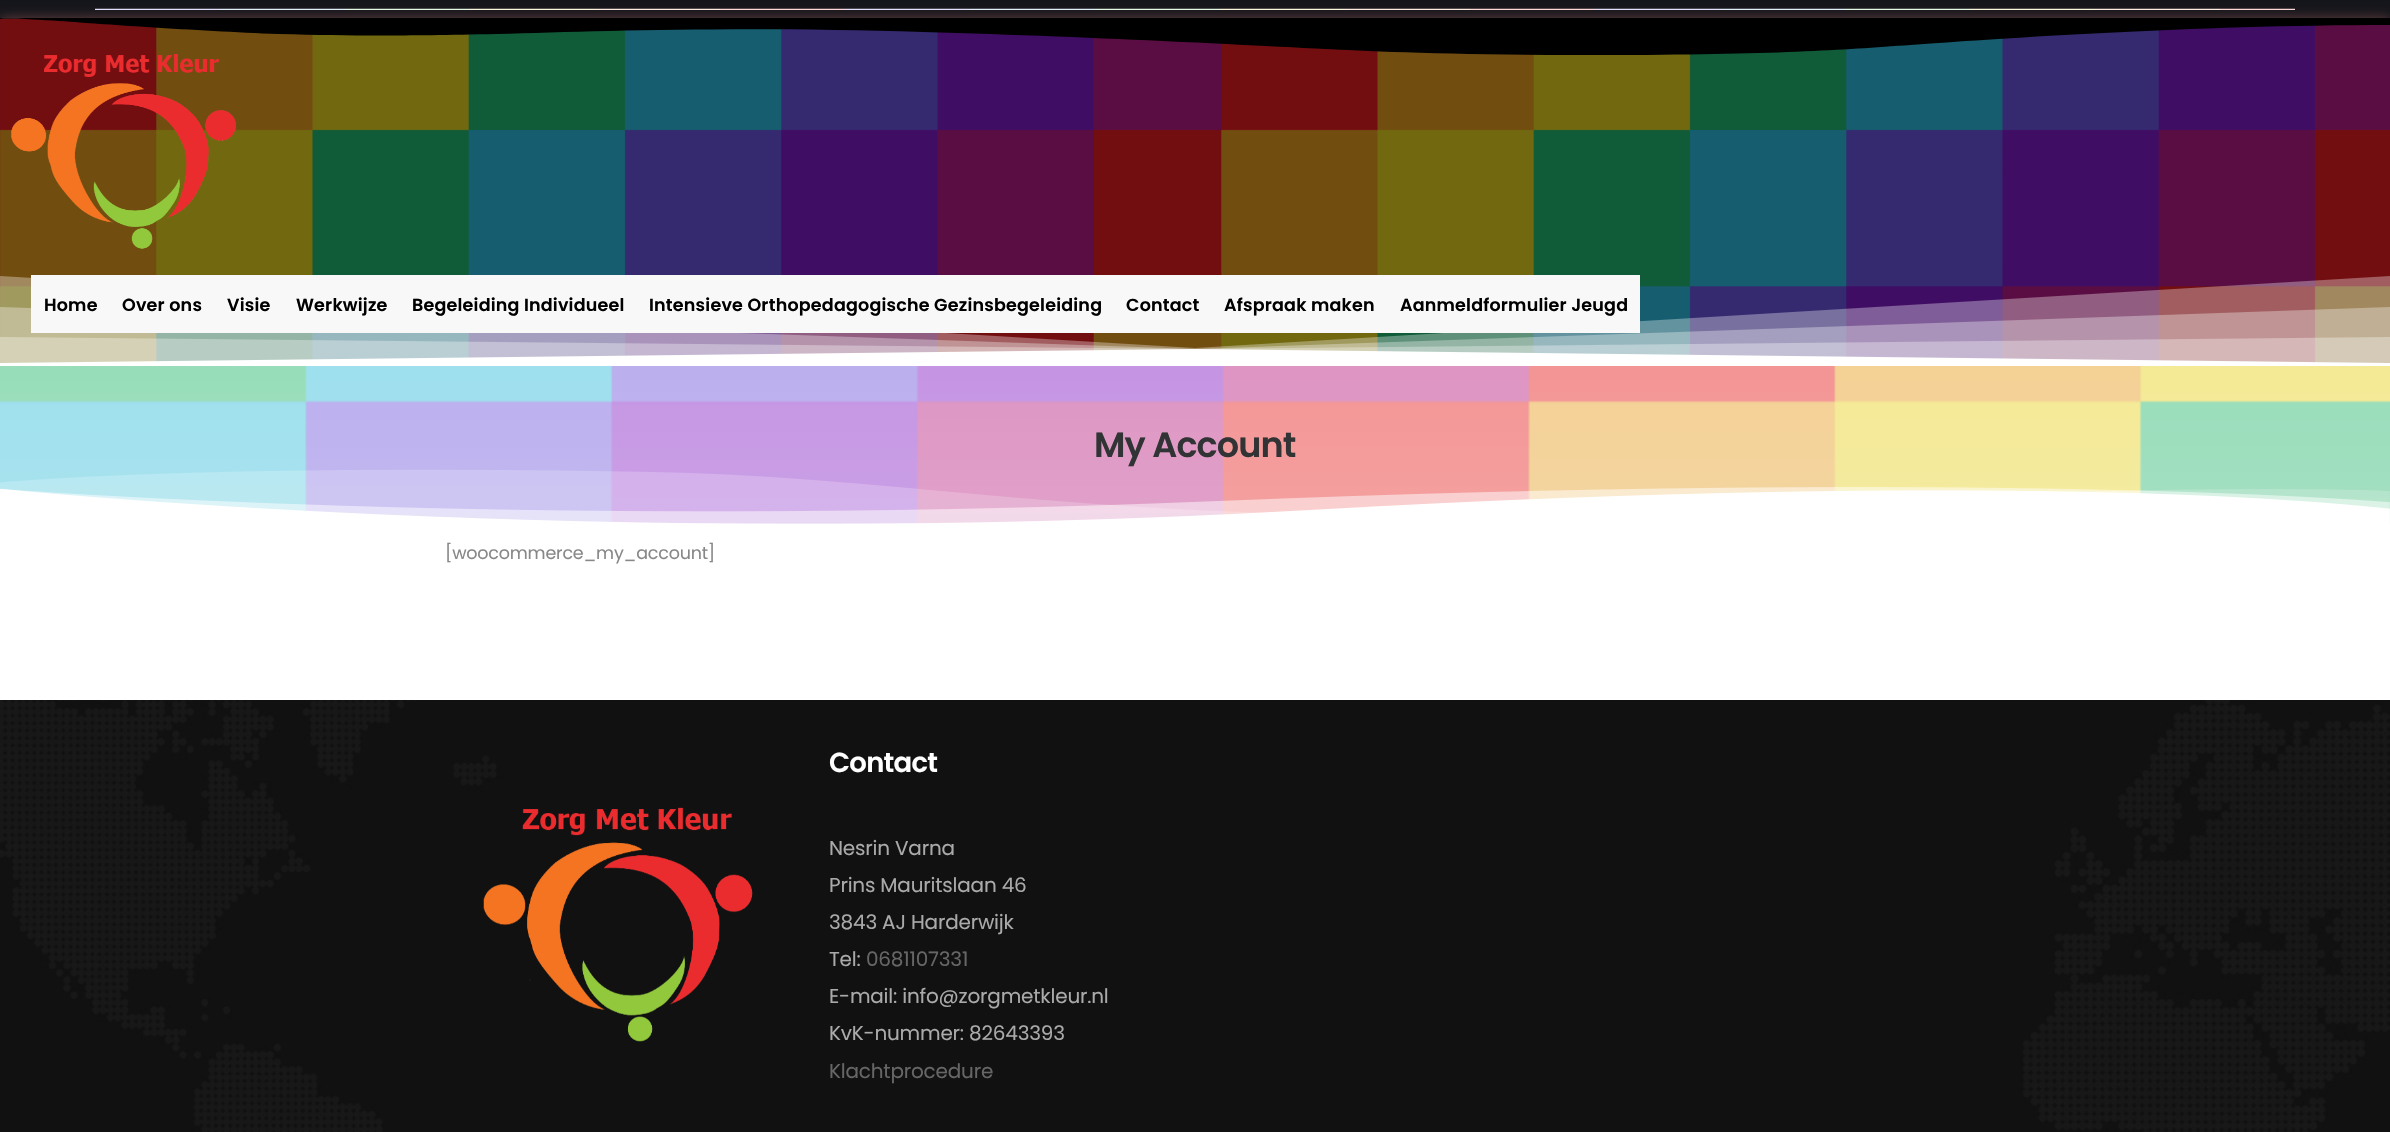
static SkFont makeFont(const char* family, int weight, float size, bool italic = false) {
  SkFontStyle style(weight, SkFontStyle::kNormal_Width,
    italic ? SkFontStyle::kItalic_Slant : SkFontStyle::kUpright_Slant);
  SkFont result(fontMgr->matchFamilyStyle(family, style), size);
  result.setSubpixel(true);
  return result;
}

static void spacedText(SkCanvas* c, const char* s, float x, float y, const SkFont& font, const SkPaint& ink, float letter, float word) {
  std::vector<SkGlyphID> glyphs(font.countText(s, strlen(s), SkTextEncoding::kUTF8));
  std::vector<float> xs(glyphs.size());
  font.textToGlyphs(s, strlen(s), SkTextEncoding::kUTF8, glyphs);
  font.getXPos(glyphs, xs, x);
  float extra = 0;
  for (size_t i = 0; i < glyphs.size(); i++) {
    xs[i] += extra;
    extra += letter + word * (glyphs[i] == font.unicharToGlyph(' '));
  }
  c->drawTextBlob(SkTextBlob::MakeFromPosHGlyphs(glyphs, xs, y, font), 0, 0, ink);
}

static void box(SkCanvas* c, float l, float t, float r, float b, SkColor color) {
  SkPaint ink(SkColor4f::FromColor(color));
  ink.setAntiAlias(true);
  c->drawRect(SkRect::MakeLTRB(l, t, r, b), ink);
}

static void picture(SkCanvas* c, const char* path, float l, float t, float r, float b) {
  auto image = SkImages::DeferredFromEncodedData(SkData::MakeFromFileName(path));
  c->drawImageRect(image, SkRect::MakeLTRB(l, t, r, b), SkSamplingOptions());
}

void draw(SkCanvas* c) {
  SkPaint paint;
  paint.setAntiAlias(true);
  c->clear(0xffffffff);
  box(c, 0, 0, 2390, 18, 0xff14151a);
  box(c, 0, 18, 24, 19, 0xff2a2b2f);
  picture(c, "img_01.png", 95, 8, 2295, 10);
  paint.setColor(0x80cc7272);
  paint.setMaskFilter(SkMaskFilter::MakeBlur(kNormal_SkBlurStyle, 6));
  c->drawRect(SkRect::MakeLTRB(0, 19, 2390, 366), paint);
  paint.setMaskFilter(nullptr);
  box(c, 0, 19, 2390, 363, 0xff14151a);
  picture(c, "img_02.png", 0, 18, 2390, 363);
  c->save();
  c->clipRect(SkRect::MakeLTRB(0, 18, 2390, 55));
  paint.setColor(0xff000000);
  c->drawPath(SkPathBuilder().moveTo(-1, 19).cubicTo(-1, 19, 7, 18, 25, 19).cubicTo(44, 20, 63, 21, 74, 22).cubicTo(86, 23, 197, 31, 278, 34).cubicTo(357, 36, 397, 36, 497, 34).cubicTo(596, 31, 743, 26, 923, 32).cubicTo(1103, 37, 1284, 47, 1325, 49).cubicTo(1367, 51, 1466, 56, 1632, 55).cubicTo(1798, 54, 1852, 49, 1924, 44).cubicTo(1995, 39, 2192, 25, 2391, 25).lineTo(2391, 18).lineTo(-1, 18).close().detach(), paint);
  c->restore();
  paint.setColor(0x54ffffff);
  c->drawPath(SkPathBuilder().moveTo(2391, 369).lineTo(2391, 276).lineTo(1195, 348).lineTo(-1, 276).lineTo(-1, 369).close().detach(), paint);
  c->drawPath(SkPathBuilder().moveTo(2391, 369).lineTo(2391, 307).lineTo(1195, 349).lineTo(-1, 307).lineTo(-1, 369).close().detach(), paint);
  c->drawPath(SkPathBuilder().moveTo(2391, 369).lineTo(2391, 337).lineTo(1195, 349).lineTo(-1, 337).lineTo(-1, 369).close().detach(), paint);
  paint.setColor(0xffffffff);
  c->drawPath(SkPathBuilder().moveTo(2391, 369).lineTo(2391, 363).lineTo(1195, 349).lineTo(-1, 363).lineTo(-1, 369).close().detach(), paint);
  picture(c, "img_03.png", 11, 54, 236, 249);
  box(c, 31, 275, 1640, 333, 0xfff8f8f8);
  SkFont face1 = makeFont("Poppins", 600, 17.5f);
  paint.setColor(0xff000000);
  spacedText(c, "Home", 44, 311, face1, paint, 0.2f, 0);
  spacedText(c, "Over ons", 122, 311, face1, paint, 0.2f, 0);
  spacedText(c, "Visie", 227, 311, face1, paint, 0.2f, 0);
  spacedText(c, "Werkwijze", 296, 311, face1, paint, 0.2f, 0);
  spacedText(c, "Begeleiding Individueel", 412, 311, face1, paint, 0.2f, 0);
  spacedText(c, "Intensieve Orthopedagogische Gezinsbegeleiding", 649, 311, face1, paint, 0.2f, 0);
  spacedText(c, "Contact", 1126, 311, face1, paint, 0.2f, 0);
  spacedText(c, "Afspraak maken", 1224, 311, face1, paint, 0.2f, 0);
  spacedText(c, "Aanmeldformulier Jeugd", 1400, 311, face1, paint, 0.2f, 0);
  box(c, 0, 366, 2390, 524, 0xffeeeeee);
  picture(c, "img_04.png", 0, 366, 2390, 524);
  SkFont face2 = makeFont("Poppins", 600, 35);
  paint.setColor(0xff323334);
  spacedText(c, "My Account", 1094, 457, face2, paint, -0.9f, 0);
  picture(c, "img_05.png", 0, 469, 2390, 524);
  SkFont face3 = makeFont("Poppins", 400, 17.5f);
  paint.setColor(0xff888888);
  spacedText(c, "[woocommerce_my_account]", 445, 559, face3, paint, -0.2f, 0);
  picture(c, "img_06.png", 0, 700, 2390, 1132);
  picture(c, "img_07.png", 483, 807, 753, 1042);
  SkFont face4 = makeFont("Poppins", 600, 27.5f);
  paint.setColor(0xffffffff);
  spacedText(c, "Contact", 829, 772, face4, paint, -0.75f, 0);
  SkFont face5 = makeFont("Poppins", 400, 20);
  paint.setColor(0xffaaaaaa);
  spacedText(c, "Nesrin Varna", 829, 855, face5, paint, -0.2f, 0);
  spacedText(c, "Prins Mauritslaan 46", 829, 892, face5, paint, -0.2f, 0);
  spacedText(c, "3843 AJ Harderwijk", 829, 929, face5, paint, -0.2f, 0);
  spacedText(c, "Tel:", 829, 966, face5, paint, -0.2f, 0);
  paint.setColor(0xff666666);
  spacedText(c, "0681107331", 866, 966, face5, paint, -0.2f, 0);
  paint.setColor(0xffaaaaaa);
  spacedText(c, "E-mail: info@zorgmetkleur.nl", 829, 1003, face5, paint, -0.2f, 0);
  spacedText(c, "KvK-nummer: 82643393", 829, 1040, face5, paint, -0.2f, 0);
  paint.setColor(0xff666666);
  spacedText(c, "Klachtprocedure", 829, 1078, face5, paint, -0.2f, 0);
}
